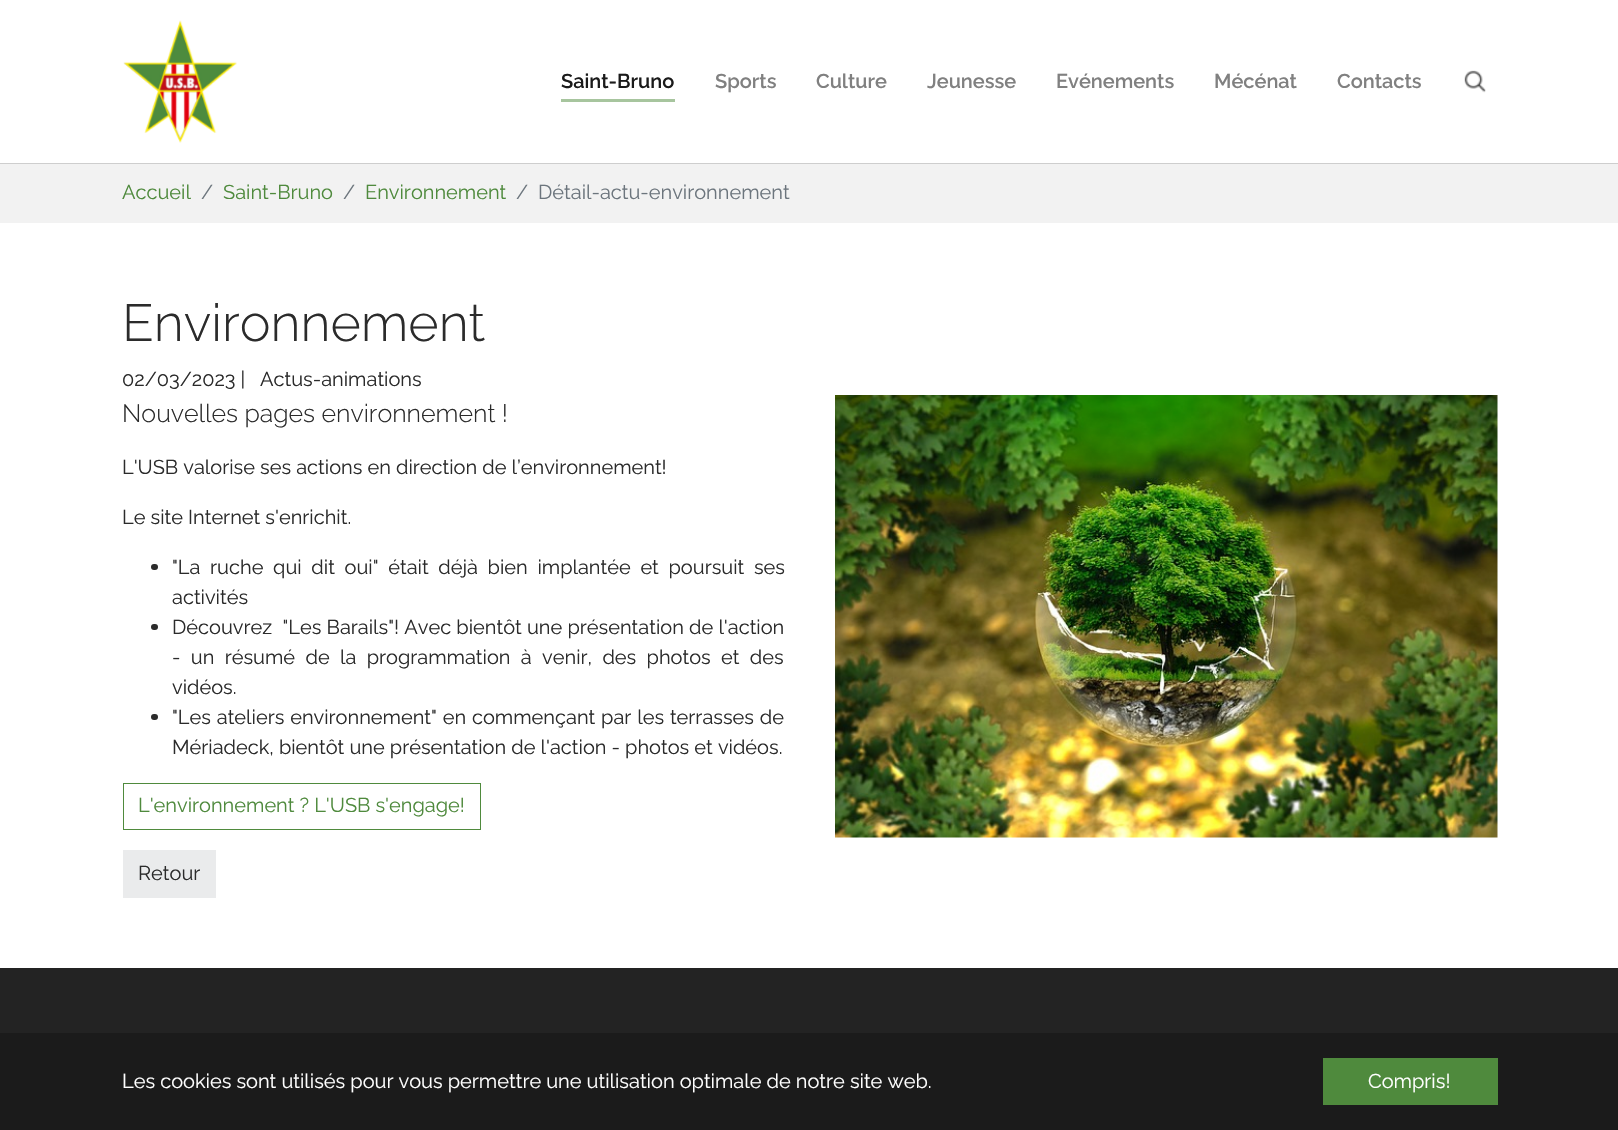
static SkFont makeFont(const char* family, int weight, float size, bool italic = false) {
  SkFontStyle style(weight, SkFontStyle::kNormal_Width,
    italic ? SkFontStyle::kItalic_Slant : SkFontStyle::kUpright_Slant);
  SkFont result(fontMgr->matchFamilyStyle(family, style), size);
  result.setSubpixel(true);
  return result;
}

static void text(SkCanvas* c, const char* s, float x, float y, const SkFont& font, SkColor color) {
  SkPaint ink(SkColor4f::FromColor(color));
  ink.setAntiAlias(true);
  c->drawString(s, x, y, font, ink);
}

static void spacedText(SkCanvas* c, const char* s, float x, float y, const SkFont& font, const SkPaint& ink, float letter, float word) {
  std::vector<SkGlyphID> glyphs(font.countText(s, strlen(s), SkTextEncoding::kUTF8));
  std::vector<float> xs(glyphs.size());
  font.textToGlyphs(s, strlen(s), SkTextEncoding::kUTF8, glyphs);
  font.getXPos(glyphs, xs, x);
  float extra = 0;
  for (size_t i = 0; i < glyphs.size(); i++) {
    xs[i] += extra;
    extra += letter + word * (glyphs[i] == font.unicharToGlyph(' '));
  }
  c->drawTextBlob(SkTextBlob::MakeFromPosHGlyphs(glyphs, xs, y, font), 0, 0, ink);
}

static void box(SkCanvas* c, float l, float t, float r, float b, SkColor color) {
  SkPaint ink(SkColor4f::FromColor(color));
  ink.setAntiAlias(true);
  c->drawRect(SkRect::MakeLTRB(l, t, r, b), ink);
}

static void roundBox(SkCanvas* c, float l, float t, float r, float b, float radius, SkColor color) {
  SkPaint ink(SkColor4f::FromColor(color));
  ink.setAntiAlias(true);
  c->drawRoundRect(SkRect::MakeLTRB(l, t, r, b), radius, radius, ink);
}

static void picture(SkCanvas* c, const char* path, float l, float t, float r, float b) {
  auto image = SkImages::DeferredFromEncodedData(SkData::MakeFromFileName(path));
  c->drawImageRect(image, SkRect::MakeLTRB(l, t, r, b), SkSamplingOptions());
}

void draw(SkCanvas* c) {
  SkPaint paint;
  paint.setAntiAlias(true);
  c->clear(0xffffffff);
  box(c, 0, 163, 1618, 223, 0xfff2f2f2);
  paint.setColor(0x26000000);
  c->drawPath(SkPathBuilder().moveTo(0, 162).lineTo(0, 164).lineTo(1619, 164).lineTo(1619, 1).lineTo(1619, 162).close().detach(), paint);
  box(c, 0, 162, 1618, 163, 0xffffffff);
  picture(c, "img_01.png", 123, 20, 237, 143);
  SkFont face1 = makeFont("Raleway", 600, 20);
  text(c, "Saint-Bruno", 561, 88, face1, 0xff1a1a1a);
  box(c, 561, 99, 675, 102, 0xffa7c59e);
  text(c, "Sports", 715, 88, face1, 0xff808080);
  text(c, "Culture", 816, 88, face1, 0xff808080);
  text(c, "Jeunesse", 927, 88, face1, 0xff808080);
  text(c, "Evénements", 1056, 88, face1, 0xff808080);
  text(c, "Mécénat", 1214, 88, face1, 0xff808080);
  text(c, "Contacts", 1337, 88, face1, 0xff808080);
  picture(c, "img_02.png", 1464, 70, 1486, 93);
  SkFont face2 = makeFont("Raleway", 400, 20);
  text(c, "Accueil", 122, 199, face2, 0xff4f8a3d);
  text(c, "/", 201, 199, face2, 0xff6c757d);
  text(c, "Saint-Bruno", 223, 199, face2, 0xff4f8a3d);
  text(c, "/", 343, 199, face2, 0xff6c757d);
  text(c, "Environnement", 365, 199, face2, 0xff4f8a3d);
  text(c, "/", 516, 199, face2, 0xff6c757d);
  text(c, "Détail-actu-environnement", 538, 199, face2, 0xff6c757d);
  SkFont face3 = makeFont("Raleway", 300, 52);
  text(c, "Environnement", 122, 341, face3, 0xff2b2b2b);
  text(c, "02/03/2023 |", 122, 386, face2, 0xff2b2b2b);
  text(c, "Actus-animations", 260, 386, face2, 0xff2b2b2b);
  SkFont face4 = makeFont("Raleway", 300, 25);
  text(c, "Nouvelles pages environnement !", 122, 422, face4, 0xff2b2b2b);
  text(c, "L'USB valorise ses actions en direction de l’environnement!", 122, 474, face2, 0xff2b2b2b);
  text(c, "Le site Internet s'enrichit.", 122, 524, face2, 0xff2b2b2b);
  roundBox(c, 151, 564, 158, 570, 3, 0xff2b2b2b);
  paint.setColor(0xff2b2b2b);
  spacedText(c, "\"La ruche qui dit oui\" était déjà bien implantée et poursuit ses", 172, 574, face2, paint, 0, 4.6f);
  text(c, "activités", 172, 604, face2, 0xff2b2b2b);
  roundBox(c, 151, 624, 158, 630, 3, 0xff2b2b2b);
  spacedText(c, "Découvrez  \"Les Barails\"! Avec bientôt une présentation de l'action", 172, 634, face2, paint, 0, 0.1f);
  spacedText(c, "- un résumé de la programmation à venir, des photos et des", 172, 664, face2, paint, 0, 5.25f);
  text(c, "vidéos.", 172, 694, face2, 0xff2b2b2b);
  roundBox(c, 151, 714, 158, 720, 3, 0xff2b2b2b);
  spacedText(c, "\"Les ateliers environnement\" en commençant par les terrasses de", 172, 724, face2, paint, 0, 0.75f);
  text(c, "Mériadeck, bientôt une présentation de l'action - photos et vidéos.", 172, 754, face2, 0xff2b2b2b);
  paint.setStyle(SkPaint::kStroke_Style);
  paint.setStrokeWidth(1);
  paint.setColor(0xff4f8a3d);
  c->drawRect(SkRect::MakeLTRB(123.5f, 783.5f, 480.5f, 829.5f), paint);
  text(c, "L'environnement ? L'USB s'engage!", 138, 812, face2, 0xff4f8a3d);
  box(c, 123, 850, 216, 898, 0xffeaebec);
  text(c, "Retour", 138, 880, face2, 0xff2b2b2b);
  picture(c, "img_03.png", 835, 395, 1498, 838);
  box(c, 0, 968, 1618, 1033, 0xff232323);
  box(c, 0, 1033, 1618, 1130, 0xff1b1b1b);
  text(c, "Les cookies sont utilisés pour vous permettre une utilisation optimale de notre site web.", 122, 1088, face2, 0xffffffff);
  box(c, 1323, 1058, 1498, 1105, 0xff4f8a3d);
  text(c, "Compris!", 1368, 1088, face2, 0xffffffff);
}
